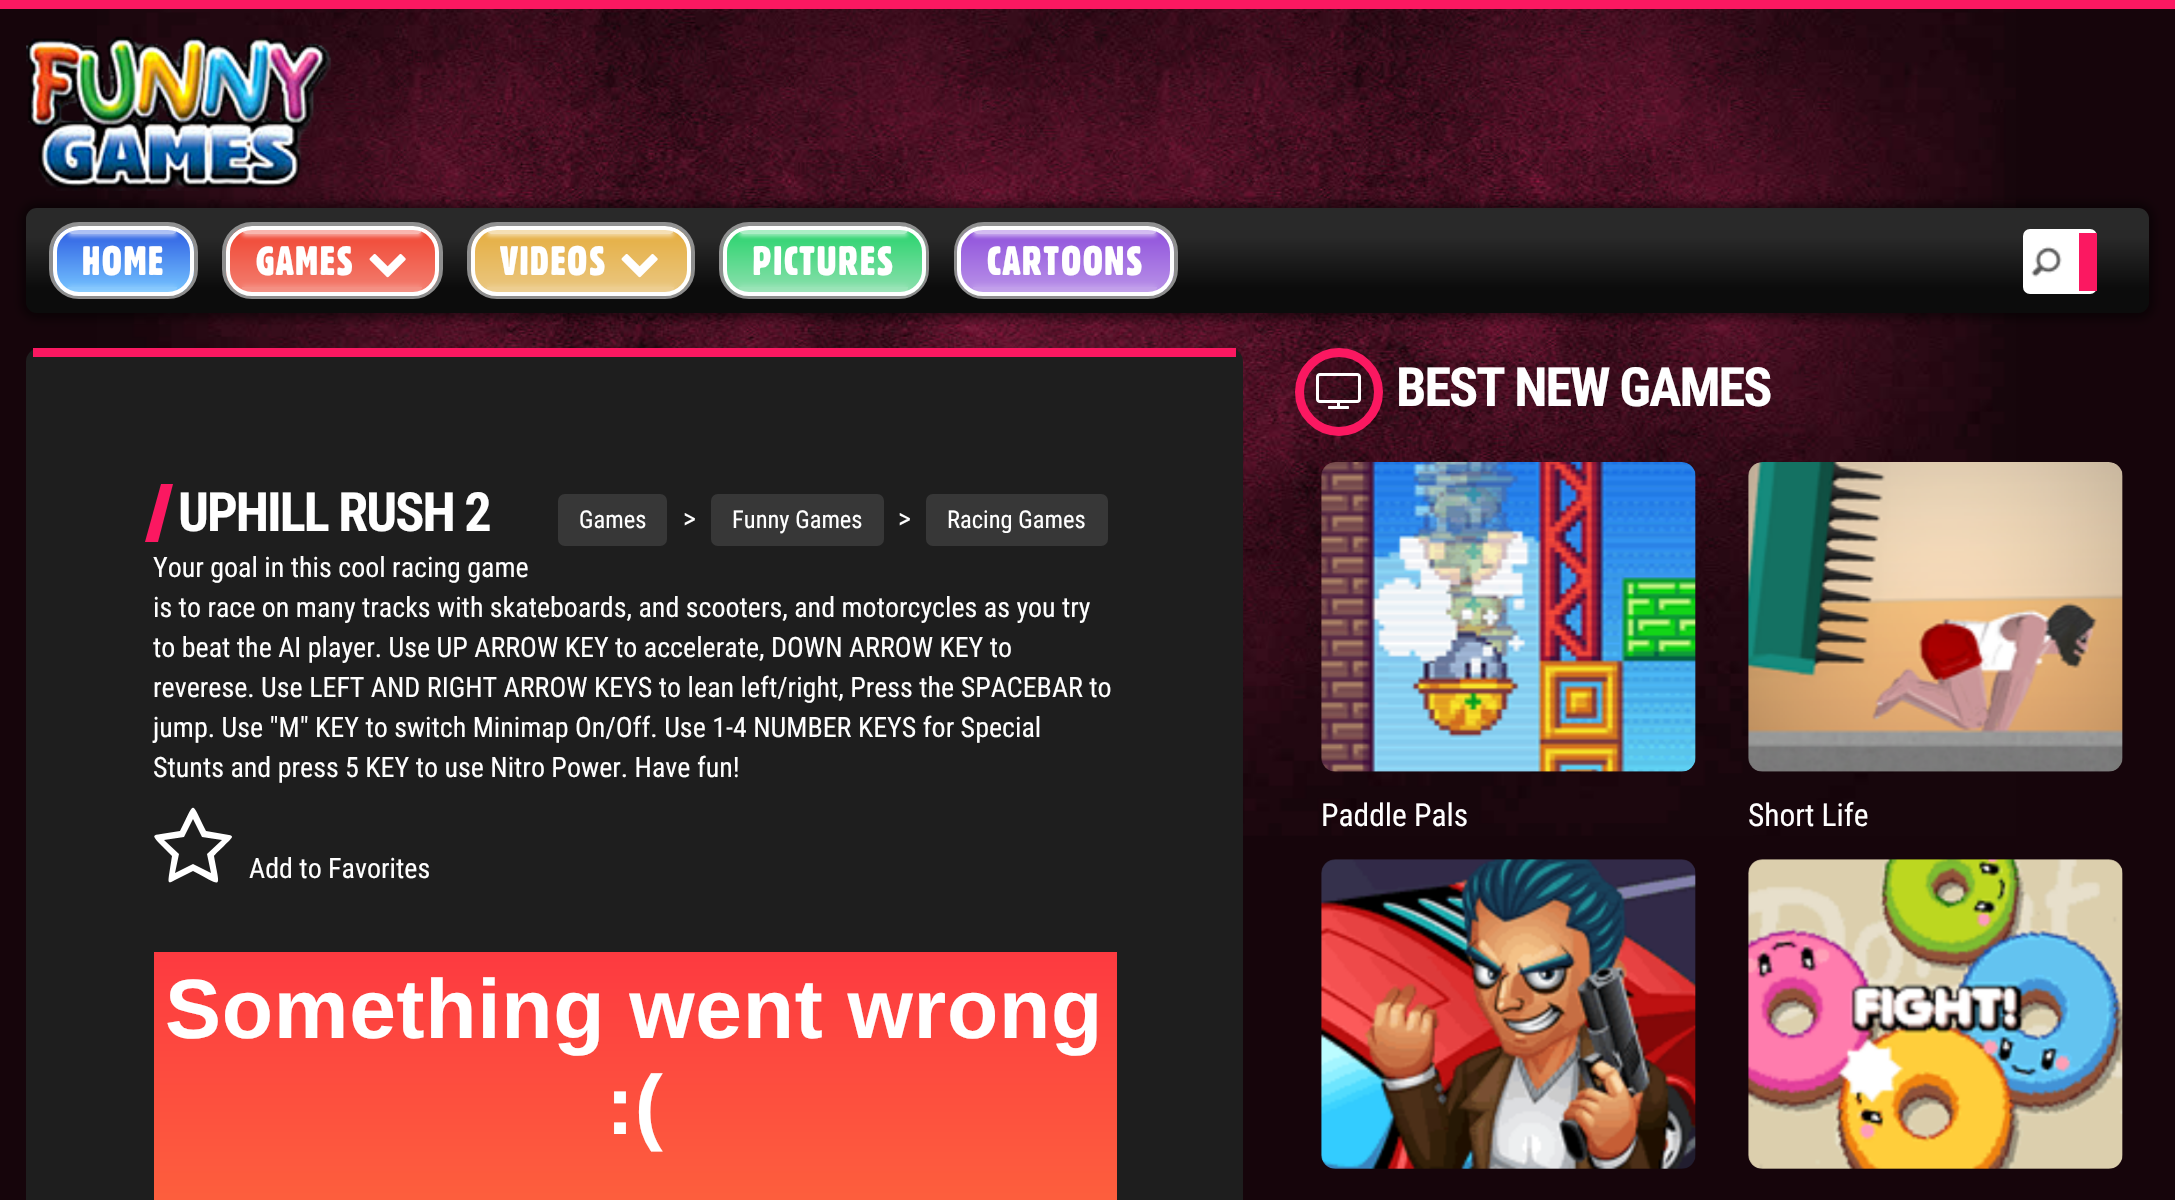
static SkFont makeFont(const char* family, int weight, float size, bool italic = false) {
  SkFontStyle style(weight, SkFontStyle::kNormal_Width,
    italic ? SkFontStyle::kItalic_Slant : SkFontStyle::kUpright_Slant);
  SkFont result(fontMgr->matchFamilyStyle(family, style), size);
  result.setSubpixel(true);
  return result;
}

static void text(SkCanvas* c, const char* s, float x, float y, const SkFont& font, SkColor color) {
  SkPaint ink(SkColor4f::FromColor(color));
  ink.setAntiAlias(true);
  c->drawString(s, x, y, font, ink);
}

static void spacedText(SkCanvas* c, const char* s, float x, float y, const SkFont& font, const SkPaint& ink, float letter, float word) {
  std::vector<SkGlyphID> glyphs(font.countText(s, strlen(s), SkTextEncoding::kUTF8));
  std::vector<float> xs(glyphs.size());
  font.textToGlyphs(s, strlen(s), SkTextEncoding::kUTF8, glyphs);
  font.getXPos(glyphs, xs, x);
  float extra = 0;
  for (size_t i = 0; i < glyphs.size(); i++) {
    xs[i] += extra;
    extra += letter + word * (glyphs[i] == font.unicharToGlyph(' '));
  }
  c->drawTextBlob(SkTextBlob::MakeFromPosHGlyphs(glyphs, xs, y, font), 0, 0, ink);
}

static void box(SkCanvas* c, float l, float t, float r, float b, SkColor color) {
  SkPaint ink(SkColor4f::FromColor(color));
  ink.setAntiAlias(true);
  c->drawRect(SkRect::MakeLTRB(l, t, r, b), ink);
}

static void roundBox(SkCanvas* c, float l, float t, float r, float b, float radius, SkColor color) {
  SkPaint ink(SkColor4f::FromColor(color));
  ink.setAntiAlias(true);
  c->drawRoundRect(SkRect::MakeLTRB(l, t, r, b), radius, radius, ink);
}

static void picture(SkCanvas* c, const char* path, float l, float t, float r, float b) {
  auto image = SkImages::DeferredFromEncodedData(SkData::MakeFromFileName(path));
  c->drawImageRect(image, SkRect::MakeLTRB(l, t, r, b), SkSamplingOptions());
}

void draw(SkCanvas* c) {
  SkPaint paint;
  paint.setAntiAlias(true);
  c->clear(0xff16050b);
  picture(c, "img_01.png", 97, 9, 2016, 836);
  box(c, 0, 0, 2175, 9, 0xfffb1861);
  picture(c, "img_02.png", 26, 36, 331, 191);
  paint.setColor(0x80000000);
  paint.setMaskFilter(SkMaskFilter::MakeBlur(kNormal_SkBlurStyle, 5));
  c->drawRoundRect(SkRect::MakeLTRB(21, 203, 2154, 319), 16, 16, paint);
  paint.setMaskFilter(nullptr);
  {
    const SkColor colors[] = {0xff292929, 0xff0c0c0c};
    const float stops[] = {0.28f, 0.76f};
    const SkPoint ends[] = {{1088, 208}, {1088, 313}};
    paint.setShader(SkGradientShader::MakeLinear(ends, colors, stops, 2, SkTileMode::kClamp));
    paint.setAlpha(255);
  }
  c->drawRoundRect(SkRect::MakeLTRB(26, 208, 2149, 313), 11, 11, paint);
  paint.setStyle(SkPaint::kStroke_Style);
  paint.setStrokeWidth(4);
  paint.setShader(nullptr);
  paint.setColor(0xe69a9a9a);
  c->drawRoundRect(SkRect::MakeLTRB(51, 224, 196, 297), 28, 28, paint);
  c->save();
  c->clipPath(SkPathBuilder().moveTo(79, 226).lineTo(168, 226).cubicTo(182.5f, 226, 194, 237.5f, 194, 252).lineTo(194, 270).cubicTo(194, 284.5f, 182.5f, 296, 168, 296).lineTo(79, 296).cubicTo(64.5f, 296, 53, 284.5f, 53, 270).lineTo(53, 252).cubicTo(53, 237.5f, 64.5f, 226, 79, 226).close().detach(), true);
  paint.setStyle(SkPaint::kFill_Style);
  {
    const SkColor colors[] = {0xff2d5de2, 0xff75c4ff};
    const float stops[] = {0, 1};
    const SkPoint ends[] = {{123, 229}, {123, 292}};
    paint.setShader(SkGradientShader::MakeLinear(ends, colors, stops, 2, SkTileMode::kClamp));
    paint.setAlpha(255);
  }
  c->drawRect(SkRect::MakeLTRB(53, 229, 194, 292), paint);
  c->restore();
  paint.setStyle(SkPaint::kStroke_Style);
  paint.setShader(nullptr);
  paint.setColor(0xffffffff);
  c->drawRoundRect(SkRect::MakeLTRB(55, 228, 192, 294), 24, 24, paint);
  c->save();
  c->clipPath(SkPathBuilder(SkPathFillType::kEvenOdd).moveTo(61, 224).lineTo(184, 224).lineTo(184, 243).lineTo(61, 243).close().moveTo(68, 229).lineTo(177, 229).cubicTo(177, 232, 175, 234, 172, 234).lineTo(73, 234).cubicTo(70, 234, 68, 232, 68, 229).close().detach(), true);
  paint.setStyle(SkPaint::kFill_Style);
  paint.setColor(0x99ffffff);
  paint.setMaskFilter(SkMaskFilter::MakeBlur(kNormal_SkBlurStyle, 2));
  c->drawRoundRect(SkRect::MakeLTRB(68, 231, 177, 236), 5, 5, paint);
  paint.setMaskFilter(nullptr);
  c->restore();
  c->drawPath(SkPathBuilder().moveTo(68, 229).lineTo(177, 229).cubicTo(177, 232, 175, 234, 172, 234).lineTo(73, 234).cubicTo(70, 234, 68, 232, 68, 229).close().detach(), paint);
  SkFont face1 = makeFont("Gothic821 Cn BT", 400, 40);
  paint.setColor(0xffffffff);
  spacedText(c, "HOME", 82, 275, face1, paint, 1.5f, 0);
  c->save();
  c->clipPath(SkPathBuilder(SkPathFillType::kEvenOdd).moveTo(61, 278).lineTo(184, 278).lineTo(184, 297).lineTo(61, 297).close().moveTo(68, 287).lineTo(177, 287).cubicTo(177, 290, 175, 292, 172, 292).lineTo(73, 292).cubicTo(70, 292, 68, 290, 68, 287).close().detach(), true);
  paint.setColor(0x26ffffff);
  paint.setMaskFilter(SkMaskFilter::MakeBlur(kNormal_SkBlurStyle, 2));
  c->drawRoundRect(SkRect::MakeLTRB(68, 285, 177, 290), 5, 5, paint);
  paint.setMaskFilter(nullptr);
  c->restore();
  c->drawPath(SkPathBuilder().moveTo(68, 287).lineTo(177, 287).cubicTo(177, 290, 175, 292, 172, 292).lineTo(73, 292).cubicTo(70, 292, 68, 290, 68, 287).close().detach(), paint);
  paint.setStyle(SkPaint::kStroke_Style);
  paint.setColor(0xe69a9a9a);
  c->drawRoundRect(SkRect::MakeLTRB(224, 224, 441, 297), 28, 28, paint);
  c->save();
  c->clipPath(SkPathBuilder().moveTo(252, 226).lineTo(413, 226).cubicTo(427.5f, 226, 439, 237.5f, 439, 252).lineTo(439, 270).cubicTo(439, 284.5f, 427.5f, 296, 413, 296).lineTo(252, 296).cubicTo(237.5f, 296, 226, 284.5f, 226, 270).lineTo(226, 252).cubicTo(226, 237.5f, 237.5f, 226, 252, 226).close().detach(), true);
  paint.setStyle(SkPaint::kFill_Style);
  {
    const SkColor colors[] = {0xfff04531, 0xfff37f71};
    const float stops[] = {0, 1};
    const SkPoint ends[] = {{333, 229}, {333, 292}};
    paint.setShader(SkGradientShader::MakeLinear(ends, colors, stops, 2, SkTileMode::kClamp));
    paint.setAlpha(255);
  }
  c->drawRect(SkRect::MakeLTRB(226, 229, 439, 292), paint);
  c->restore();
  paint.setStyle(SkPaint::kStroke_Style);
  paint.setShader(nullptr);
  paint.setColor(0xffffffff);
  c->drawRoundRect(SkRect::MakeLTRB(228, 228, 437, 294), 24, 24, paint);
  c->save();
  c->clipPath(SkPathBuilder(SkPathFillType::kEvenOdd).moveTo(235, 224).lineTo(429, 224).lineTo(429, 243).lineTo(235, 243).close().moveTo(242, 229).lineTo(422, 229).cubicTo(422, 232, 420, 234, 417, 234).lineTo(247, 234).cubicTo(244, 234, 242, 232, 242, 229).close().detach(), true);
  paint.setStyle(SkPaint::kFill_Style);
  paint.setColor(0x99ffffff);
  paint.setMaskFilter(SkMaskFilter::MakeBlur(kNormal_SkBlurStyle, 2));
  c->drawRoundRect(SkRect::MakeLTRB(242, 231, 422, 236), 5, 5, paint);
  paint.setMaskFilter(nullptr);
  c->restore();
  c->drawPath(SkPathBuilder().moveTo(242, 229).lineTo(422, 229).cubicTo(422, 232, 420, 234, 417, 234).lineTo(247, 234).cubicTo(244, 234, 242, 232, 242, 229).close().detach(), paint);
  paint.setColor(0xffffffff);
  spacedText(c, "GAMES", 256, 275, face1, paint, 1.5f, 0);
  picture(c, "img_03.png", 369, 254, 406, 278);
  c->save();
  c->clipPath(SkPathBuilder(SkPathFillType::kEvenOdd).moveTo(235, 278).lineTo(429, 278).lineTo(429, 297).lineTo(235, 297).close().moveTo(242, 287).lineTo(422, 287).cubicTo(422, 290, 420, 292, 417, 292).lineTo(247, 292).cubicTo(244, 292, 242, 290, 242, 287).close().detach(), true);
  paint.setColor(0x26ffffff);
  paint.setMaskFilter(SkMaskFilter::MakeBlur(kNormal_SkBlurStyle, 2));
  c->drawRoundRect(SkRect::MakeLTRB(242, 285, 422, 290), 5, 5, paint);
  paint.setMaskFilter(nullptr);
  c->restore();
  c->drawPath(SkPathBuilder().moveTo(242, 287).lineTo(422, 287).cubicTo(422, 290, 420, 292, 417, 292).lineTo(247, 292).cubicTo(244, 292, 242, 290, 242, 287).close().detach(), paint);
  paint.setStyle(SkPaint::kStroke_Style);
  paint.setColor(0xe69a9a9a);
  c->drawRoundRect(SkRect::MakeLTRB(469, 224, 693, 297), 28, 28, paint);
  c->save();
  c->clipPath(SkPathBuilder().moveTo(497, 226).lineTo(665, 226).cubicTo(679.5f, 226, 691, 237.5f, 691, 252).lineTo(691, 270).cubicTo(691, 284.5f, 679.5f, 296, 665, 296).lineTo(497, 296).cubicTo(482.5f, 296, 471, 284.5f, 471, 270).lineTo(471, 252).cubicTo(471, 237.5f, 482.5f, 226, 497, 226).close().detach(), true);
  paint.setStyle(SkPaint::kFill_Style);
  {
    const SkColor colors[] = {0xffe5ad3f, 0xffeac781};
    const float stops[] = {0, 1};
    const SkPoint ends[] = {{581, 229}, {581, 292}};
    paint.setShader(SkGradientShader::MakeLinear(ends, colors, stops, 2, SkTileMode::kClamp));
    paint.setAlpha(255);
  }
  c->drawRect(SkRect::MakeLTRB(471, 229, 691, 292), paint);
  c->restore();
  paint.setStyle(SkPaint::kStroke_Style);
  paint.setShader(nullptr);
  paint.setColor(0xffffffff);
  c->drawRoundRect(SkRect::MakeLTRB(473, 228, 689, 294), 24, 24, paint);
  c->save();
  c->clipPath(SkPathBuilder(SkPathFillType::kEvenOdd).moveTo(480, 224).lineTo(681, 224).lineTo(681, 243).lineTo(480, 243).close().moveTo(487, 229).lineTo(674, 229).cubicTo(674, 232, 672, 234, 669, 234).lineTo(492, 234).cubicTo(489, 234, 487, 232, 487, 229).close().detach(), true);
  paint.setStyle(SkPaint::kFill_Style);
  paint.setColor(0x99ffffff);
  paint.setMaskFilter(SkMaskFilter::MakeBlur(kNormal_SkBlurStyle, 2));
  c->drawRoundRect(SkRect::MakeLTRB(487, 231, 674, 236), 5, 5, paint);
  paint.setMaskFilter(nullptr);
  c->restore();
  c->drawPath(SkPathBuilder().moveTo(487, 229).lineTo(674, 229).cubicTo(674, 232, 672, 234, 669, 234).lineTo(492, 234).cubicTo(489, 234, 487, 232, 487, 229).close().detach(), paint);
  paint.setColor(0xffffffff);
  spacedText(c, "VIDEOS", 500, 275, face1, paint, 1.5f, 0);
  picture(c, "img_04.png", 621, 254, 658, 278);
  c->save();
  c->clipPath(SkPathBuilder(SkPathFillType::kEvenOdd).moveTo(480, 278).lineTo(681, 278).lineTo(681, 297).lineTo(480, 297).close().moveTo(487, 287).lineTo(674, 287).cubicTo(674, 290, 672, 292, 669, 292).lineTo(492, 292).cubicTo(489, 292, 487, 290, 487, 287).close().detach(), true);
  paint.setColor(0x26ffffff);
  paint.setMaskFilter(SkMaskFilter::MakeBlur(kNormal_SkBlurStyle, 2));
  c->drawRoundRect(SkRect::MakeLTRB(487, 285, 674, 290), 5, 5, paint);
  paint.setMaskFilter(nullptr);
  c->restore();
  c->drawPath(SkPathBuilder().moveTo(487, 287).lineTo(674, 287).cubicTo(674, 290, 672, 292, 669, 292).lineTo(492, 292).cubicTo(489, 292, 487, 290, 487, 287).close().detach(), paint);
  paint.setStyle(SkPaint::kStroke_Style);
  paint.setColor(0xe69a9a9a);
  c->drawRoundRect(SkRect::MakeLTRB(721, 224, 927, 297), 28, 28, paint);
  c->save();
  c->clipPath(SkPathBuilder().moveTo(749, 226).lineTo(900, 226).cubicTo(914.5f, 226, 926, 237.5f, 926, 252).lineTo(926, 270).cubicTo(926, 284.5f, 914.5f, 296, 900, 296).lineTo(749, 296).cubicTo(734.5f, 296, 723, 284.5f, 723, 270).lineTo(723, 252).cubicTo(723, 237.5f, 734.5f, 226, 749, 226).close().detach(), true);
  paint.setStyle(SkPaint::kFill_Style);
  {
    const SkColor colors[] = {0xff28d36c, 0xff8de0ae};
    const float stops[] = {0.01f, 1};
    const SkPoint ends[] = {{824, 229}, {824, 292}};
    paint.setShader(SkGradientShader::MakeLinear(ends, colors, stops, 2, SkTileMode::kClamp));
    paint.setAlpha(255);
  }
  c->drawRect(SkRect::MakeLTRB(723, 229, 926, 292), paint);
  c->restore();
  paint.setStyle(SkPaint::kStroke_Style);
  paint.setShader(nullptr);
  paint.setColor(0xffffffff);
  c->drawRoundRect(SkRect::MakeLTRB(725, 228, 924, 294), 24, 24, paint);
  c->save();
  c->clipPath(SkPathBuilder(SkPathFillType::kEvenOdd).moveTo(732, 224).lineTo(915, 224).lineTo(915, 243).lineTo(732, 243).close().moveTo(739, 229).lineTo(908, 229).cubicTo(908, 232, 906, 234, 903, 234).lineTo(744, 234).cubicTo(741, 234, 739, 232, 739, 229).close().detach(), true);
  paint.setStyle(SkPaint::kFill_Style);
  paint.setColor(0x99ffffff);
  paint.setMaskFilter(SkMaskFilter::MakeBlur(kNormal_SkBlurStyle, 2));
  c->drawRoundRect(SkRect::MakeLTRB(739, 231, 908, 236), 5, 5, paint);
  paint.setMaskFilter(nullptr);
  c->restore();
  c->drawPath(SkPathBuilder().moveTo(739, 229).lineTo(908, 229).cubicTo(908, 232, 906, 234, 903, 234).lineTo(744, 234).cubicTo(741, 234, 739, 232, 739, 229).close().detach(), paint);
  paint.setColor(0xffffffff);
  spacedText(c, "PICTURES", 752, 275, face1, paint, 1.5f, 0);
  c->save();
  c->clipPath(SkPathBuilder(SkPathFillType::kEvenOdd).moveTo(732, 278).lineTo(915, 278).lineTo(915, 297).lineTo(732, 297).close().moveTo(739, 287).lineTo(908, 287).cubicTo(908, 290, 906, 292, 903, 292).lineTo(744, 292).cubicTo(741, 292, 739, 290, 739, 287).close().detach(), true);
  paint.setColor(0x26ffffff);
  paint.setMaskFilter(SkMaskFilter::MakeBlur(kNormal_SkBlurStyle, 2));
  c->drawRoundRect(SkRect::MakeLTRB(739, 285, 908, 290), 5, 5, paint);
  paint.setMaskFilter(nullptr);
  c->restore();
  c->drawPath(SkPathBuilder().moveTo(739, 287).lineTo(908, 287).cubicTo(908, 290, 906, 292, 903, 292).lineTo(744, 292).cubicTo(741, 292, 739, 290, 739, 287).close().detach(), paint);
  paint.setStyle(SkPaint::kStroke_Style);
  paint.setColor(0xe69a9a9a);
  c->drawRoundRect(SkRect::MakeLTRB(956, 224, 1176, 297), 28, 28, paint);
  c->save();
  c->clipPath(SkPathBuilder().moveTo(983, 226).lineTo(1148, 226).cubicTo(1162.5f, 226, 1174, 237.5f, 1174, 252).lineTo(1174, 270).cubicTo(1174, 284.5f, 1162.5f, 296, 1148, 296).lineTo(983, 296).cubicTo(968.5f, 296, 957, 284.5f, 957, 270).lineTo(957, 252).cubicTo(957, 237.5f, 968.5f, 226, 983, 226).close().detach(), true);
  paint.setStyle(SkPaint::kFill_Style);
  {
    const SkColor colors[] = {0xff8e4fdb, 0xffb992e8};
    const float stops[] = {0, 1};
    const SkPoint ends[] = {{1066, 229}, {1066, 292}};
    paint.setShader(SkGradientShader::MakeLinear(ends, colors, stops, 2, SkTileMode::kClamp));
    paint.setAlpha(255);
  }
  c->drawRect(SkRect::MakeLTRB(957, 229, 1174, 292), paint);
  c->restore();
  paint.setStyle(SkPaint::kStroke_Style);
  paint.setShader(nullptr);
  paint.setColor(0xffffffff);
  c->drawRoundRect(SkRect::MakeLTRB(959, 228, 1172, 294), 24, 24, paint);
  c->save();
  c->clipPath(SkPathBuilder(SkPathFillType::kEvenOdd).moveTo(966, 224).lineTo(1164, 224).lineTo(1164, 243).lineTo(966, 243).close().moveTo(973, 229).lineTo(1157, 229).cubicTo(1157, 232, 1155, 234, 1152, 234).lineTo(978, 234).cubicTo(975, 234, 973, 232, 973, 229).close().detach(), true);
  paint.setStyle(SkPaint::kFill_Style);
  paint.setColor(0x99ffffff);
  paint.setMaskFilter(SkMaskFilter::MakeBlur(kNormal_SkBlurStyle, 2));
  c->drawRoundRect(SkRect::MakeLTRB(973, 231, 1157, 236), 5, 5, paint);
  paint.setMaskFilter(nullptr);
  c->restore();
  c->drawPath(SkPathBuilder().moveTo(973, 229).lineTo(1157, 229).cubicTo(1157, 232, 1155, 234, 1152, 234).lineTo(978, 234).cubicTo(975, 234, 973, 232, 973, 229).close().detach(), paint);
  paint.setColor(0xffffffff);
  spacedText(c, "CARTOONS", 987, 275, face1, paint, 1.5f, 0);
  c->save();
  c->clipPath(SkPathBuilder(SkPathFillType::kEvenOdd).moveTo(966, 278).lineTo(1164, 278).lineTo(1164, 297).lineTo(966, 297).close().moveTo(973, 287).lineTo(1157, 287).cubicTo(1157, 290, 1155, 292, 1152, 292).lineTo(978, 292).cubicTo(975, 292, 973, 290, 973, 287).close().detach(), true);
  paint.setColor(0x26ffffff);
  paint.setMaskFilter(SkMaskFilter::MakeBlur(kNormal_SkBlurStyle, 2));
  c->drawRoundRect(SkRect::MakeLTRB(973, 285, 1157, 290), 5, 5, paint);
  paint.setMaskFilter(nullptr);
  c->restore();
  c->drawPath(SkPathBuilder().moveTo(973, 287).lineTo(1157, 287).cubicTo(1157, 290, 1155, 292, 1152, 292).lineTo(978, 292).cubicTo(975, 292, 973, 290, 973, 287).close().detach(), paint);
  roundBox(c, 2023, 229, 2097, 294, 7, 0xffffffff);
  picture(c, "img_05.png", 2031, 246, 2062, 277);
  box(c, 2079, 233, 2097, 291, 0xfffb1861);
  roundBox(c, 26, 348, 1243, 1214, 14, 0xff1e1e1e);
  box(c, 33, 348, 1236, 357, 0xfffb1861);
  paint.setColor(0xfffb1861);
  c->drawPath(SkPathBuilder().moveTo(161, 484).lineTo(173, 484).lineTo(158, 542).lineTo(145, 542).close().detach(), paint);
  SkFont face2 = makeFont("Roboto Condensed", 700, 54.25f);
  paint.setColor(0xffffffff);
  spacedText(c, "UPHILL RUSH 2", 178, 531, face2, paint, -2, 0);
  roundBox(c, 558, 494, 667, 546, 7, 0xff373737);
  SkFont face3 = makeFont("Roboto Condensed", 400, 24.5f);
  text(c, "Games", 579, 528, face3, 0xffffffff);
  SkFont face4 = makeFont("Roboto Condensed", 400, 28);
  text(c, ">", 683, 528, face4, 0xffffffff);
  roundBox(c, 711, 494, 884, 546, 7, 0xff373737);
  text(c, "Funny Games", 732, 528, face3, 0xffffffff);
  text(c, ">", 898, 528, face4, 0xffffffff);
  roundBox(c, 926, 494, 1108, 546, 7, 0xff373737);
  text(c, "Racing Games", 947, 528, face3, 0xffffffff);
  text(c, "Your goal in this cool racing game", 153, 577, face4, 0xffffffff);
  text(c, "is to race on many tracks with skateboards, and scooters, and motorcycles as you try", 153, 617, face4, 0xffffffff);
  text(c, "to beat the AI player. Use UP ARROW KEY to accelerate, DOWN ARROW KEY to", 153, 657, face4, 0xffffffff);
  text(c, "reverese. Use LEFT AND RIGHT ARROW KEYS to lean left/right, Press the SPACEBAR to", 153, 697, face4, 0xffffffff);
  text(c, "jump. Use \"M\" KEY to switch Minimap On/Off. Use 1-4 NUMBER KEYS for Special", 153, 737, face4, 0xffffffff);
  text(c, "Stunts and press 5 KEY to use Nitro Power. Have fun!", 153, 777, face4, 0xffffffff);
  c->drawPath(SkPathBuilder().moveTo(207, 854).lineTo(222, 840).lineTo(202, 837).lineTo(193, 819).lineTo(184, 837).lineTo(164, 840).lineTo(179, 854).lineTo(175, 873).lineTo(193, 864).lineTo(211, 873).close().moveTo(232, 837).cubicTo(232, 839, 216, 853, 214, 856).cubicTo(220, 890, 224, 887, 193, 871).lineTo(175, 880).cubicTo(168, 884, 168, 883, 169, 875).lineTo(172, 856).lineTo(158, 842).cubicTo(153, 836, 152, 835, 161, 834).lineTo(180, 831).cubicTo(196, 800, 190, 800, 206, 831).lineTo(229, 835).cubicTo(231, 835, 232, 836, 232, 837).close().detach(), paint);
  text(c, "Add to Favorites", 249, 878, face4, 0xffffffff);
  {
    const SkColor colors[] = {0xfffd3a40, 0xfffda138};
    const float stops[] = {0, 1};
    const SkPoint ends[] = {{635, 952}, {635, 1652}};
    paint.setShader(SkGradientShader::MakeLinear(ends, colors, stops, 2, SkTileMode::kClamp));
    paint.setAlpha(255);
  }
  c->drawRect(SkRect::MakeLTRB(154, 952, 1117, 1200), paint);
  SkFont face5 = makeFont("Liberation Sans", 700, 84);
  paint.setShader(nullptr);
  paint.setColor(0xffffffff);
  spacedText(c, "Something went wrong", 165, 1038, face5, paint, 0.7f, 0);
  spacedText(c, ":(", 606, 1134, face5, paint, 0.7f, 0);
  paint.setStyle(SkPaint::kStroke_Style);
  paint.setStrokeWidth(9);
  paint.setColor(0xfffb1861);
  c->drawCircle(1339, 392, 39.5f, paint);
  picture(c, "img_06.png", 1316, 373, 1361, 409);
  paint.setStyle(SkPaint::kFill_Style);
  paint.setColor(0xffffffff);
  spacedText(c, "BEST NEW GAMES", 1396, 406, face2, paint, -2, 0);
  picture(c, "img_07.png", 1321, 462, 1696, 772);
  SkFont face6 = makeFont("Roboto Condensed", 400, 31.5f);
  text(c, "Paddle Pals", 1321, 826, face6, 0xffffffff);
  picture(c, "img_08.png", 1748, 462, 2123, 772);
  text(c, "Short Life", 1748, 826, face6, 0xffffffff);
  picture(c, "img_09.png", 1321, 859, 1696, 1169);
  picture(c, "img_10.png", 1748, 859, 2123, 1169);
}
